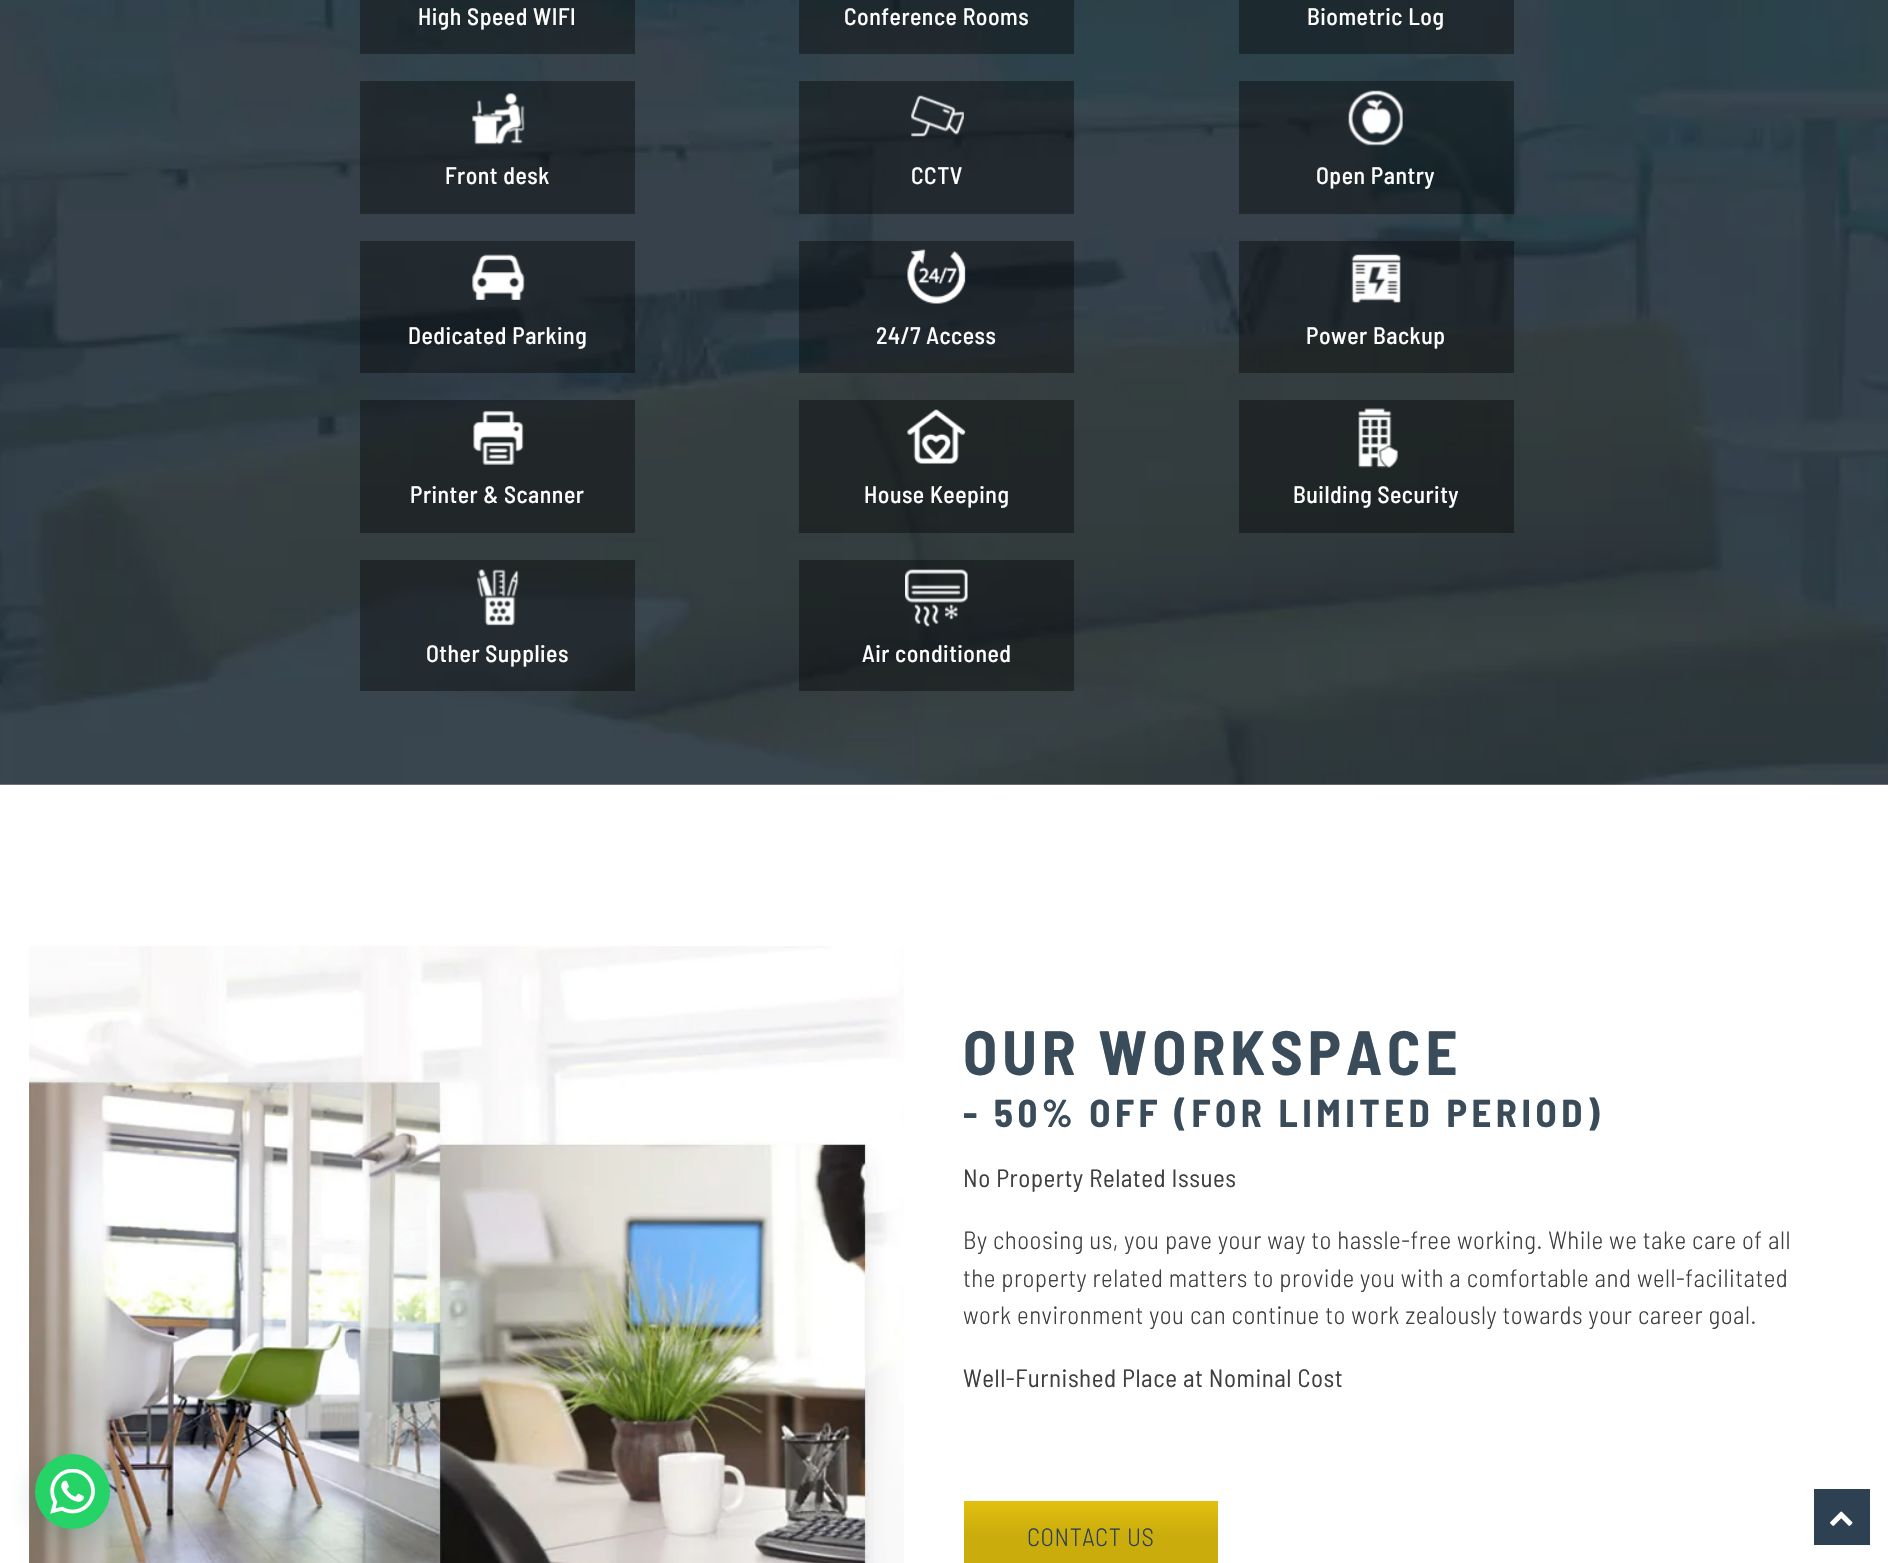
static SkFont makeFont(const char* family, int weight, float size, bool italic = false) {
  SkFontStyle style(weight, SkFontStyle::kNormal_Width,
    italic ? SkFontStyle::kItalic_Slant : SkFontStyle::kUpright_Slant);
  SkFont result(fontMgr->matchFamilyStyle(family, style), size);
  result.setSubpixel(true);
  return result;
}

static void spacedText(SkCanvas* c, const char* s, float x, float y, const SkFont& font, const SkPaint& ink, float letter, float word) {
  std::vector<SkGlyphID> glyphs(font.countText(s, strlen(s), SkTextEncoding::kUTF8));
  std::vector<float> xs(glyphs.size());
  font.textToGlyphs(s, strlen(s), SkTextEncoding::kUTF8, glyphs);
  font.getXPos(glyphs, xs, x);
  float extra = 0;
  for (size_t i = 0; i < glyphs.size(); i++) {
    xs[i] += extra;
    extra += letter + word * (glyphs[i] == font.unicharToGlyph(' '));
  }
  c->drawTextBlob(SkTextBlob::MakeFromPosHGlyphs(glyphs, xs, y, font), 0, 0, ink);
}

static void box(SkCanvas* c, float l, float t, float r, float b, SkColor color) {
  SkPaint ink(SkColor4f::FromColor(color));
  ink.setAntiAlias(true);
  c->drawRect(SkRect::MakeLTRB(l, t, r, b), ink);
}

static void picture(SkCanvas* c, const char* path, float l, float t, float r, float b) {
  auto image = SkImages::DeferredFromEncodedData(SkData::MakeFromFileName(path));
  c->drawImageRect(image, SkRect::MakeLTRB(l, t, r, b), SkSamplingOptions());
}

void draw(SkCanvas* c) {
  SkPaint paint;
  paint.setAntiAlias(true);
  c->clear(0xffffffff);
  picture(c, "img_14.png", 29, 946, 904, 1563);
  paint.setColor(0x3d075e54);
  paint.setMaskFilter(SkMaskFilter::MakeBlur(kNormal_SkBlurStyle, 15));
  c->drawRoundRect(SkRect::MakeLTRB(36, 1461, 111, 1536), 37.5f, 37.5f, paint);
  paint.setMaskFilter(nullptr);
  paint.setColor(0xff25d366);
  c->drawCircle(72.5f, 1491.5f, 37.5f, paint);
  picture(c, "img_01.png", 50, 1469, 95, 1514);
  picture(c, "img_02.png", 0, 0, 1888, 785);
  box(c, 360, 0, 635, 54, 0x61000000);
  SkFont face1 = makeFont("Barlow Semi Condensed", 500, 23.75f);
  paint.setColor(0xffffffff);
  spacedText(c, "High Speed WIFI", 418, 25, face1, paint, 0.5f, 0);
  box(c, 799, 0, 1074, 54, 0x61000000);
  spacedText(c, "Conference Rooms", 844, 25, face1, paint, 0.5f, 0);
  box(c, 1239, 0, 1514, 54, 0x61000000);
  spacedText(c, "Biometric Log", 1307, 25, face1, paint, 0.5f, 0);
  box(c, 360, 81, 635, 214, 0x61000000);
  picture(c, "img_03.png", 472, 93, 525, 145);
  spacedText(c, "Front desk", 445, 184, face1, paint, 0.5f, 0);
  box(c, 799, 81, 1074, 214, 0x61000000);
  picture(c, "img_04.png", 911, 95, 964, 137);
  spacedText(c, "CCTV", 911, 184, face1, paint, 0.5f, 0);
  box(c, 1239, 81, 1514, 214, 0x61000000);
  picture(c, "img_05.png", 1348, 90, 1403, 146);
  spacedText(c, "Open Pantry", 1316, 184, face1, paint, 0.5f, 0);
  box(c, 360, 241, 635, 373, 0x61000000);
  picture(c, "img_06.png", 472, 254, 525, 300);
  spacedText(c, "Dedicated Parking", 408, 344, face1, paint, 0.5f, 0);
  box(c, 799, 241, 1074, 373, 0x61000000);
  picture(c, "img_07.png", 907, 249, 966, 304);
  spacedText(c, "24/7 Access", 876, 344, face1, paint, 0.5f, 0);
  box(c, 1239, 241, 1514, 373, 0x61000000);
  picture(c, "img_08.png", 1351, 254, 1401, 303);
  spacedText(c, "Power Backup", 1306, 344, face1, paint, 0.5f, 0);
  box(c, 360, 400, 635, 533, 0x61000000);
  picture(c, "img_09.png", 473, 410, 524, 465);
  spacedText(c, "Printer & Scanner", 410, 503, face1, paint, 0.5f, 0);
  box(c, 799, 400, 1074, 533, 0x61000000);
  picture(c, "img_10.png", 907, 409, 966, 464);
  spacedText(c, "House Keeping", 864, 503, face1, paint, 0.5f, 0);
  box(c, 1239, 400, 1514, 533, 0x61000000);
  picture(c, "img_11.png", 1358, 408, 1398, 468);
  spacedText(c, "Building Security", 1293, 503, face1, paint, 0.5f, 0);
  box(c, 360, 560, 635, 691, 0x61000000);
  picture(c, "img_12.png", 477, 569, 519, 626);
  spacedText(c, "Other Supplies", 426, 662, face1, paint, 0.5f, 0);
  box(c, 799, 560, 1074, 691, 0x61000000);
  picture(c, "img_13.png", 905, 569, 968, 627);
  spacedText(c, "Air conditioned", 862, 662, face1, paint, 0.5f, 0);
  SkFont face2 = makeFont("Barlow Semi Condensed", 700, 62.5f);
  paint.setColor(0xff3a4c5a);
  spacedText(c, "OUR WORKSPACE", 963, 1075, face2, paint, 5, 0);
  SkFont face3 = makeFont("Barlow Semi Condensed", 700, 38.75f);
  spacedText(c, "- 50% OFF (FOR LIMITED PERIOD)", 963, 1127, face3, paint, 4.5f, 0);
  SkFont face4 = makeFont("Barlow Semi Condensed", 400, 25);
  paint.setColor(0xff3f3f3f);
  spacedText(c, "No Property Related Issues", 963, 1187, face4, paint, 0.5f, 0);
  SkFont face5 = makeFont("Barlow Semi Condensed", 300, 25);
  spacedText(c, "By choosing us, you pave your way to hassle-free working. While we take care of all", 963, 1249, face5, paint, 0.5f, 0);
  spacedText(c, "the property related matters to provide you with a comfortable and well-facilitated", 963, 1287, face5, paint, 0.5f, 0);
  spacedText(c, "work environment you can continue to work zealously towards your career goal.", 963, 1324, face5, paint, 0.5f, 0);
  spacedText(c, "Well-Furnished Place at Nominal Cost", 963, 1387, face4, paint, 0.5f, 0);
  box(c, 964, 1501, 1218, 1503, 0xffe0bf0e);
  {
    const SkColor colors[] = {0xffe0bf0e, 0xffcaac0d, 0xffcaac0d};
    const float stops[] = {0, 0.5f, 1};
    const SkPoint ends[] = {{1216, 1503}, {1216, 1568}};
    paint.setShader(SkGradientShader::MakeLinear(ends, colors, stops, 3, SkTileMode::kClamp));
    paint.setAlpha(255);
  }
  c->drawRect(SkRect::MakeLTRB(964, 1503, 1218, 1563), paint);
  paint.setShader(nullptr);
  paint.setColor(0xff2d4152);
  spacedText(c, "CONTACT US", 1027, 1546, face5, paint, 0.5f, 0);
  box(c, 1814, 1489, 1870, 1545, 0xff2d4152);
  picture(c, "img_15.png", 1830, 1511, 1853, 1526);
}
